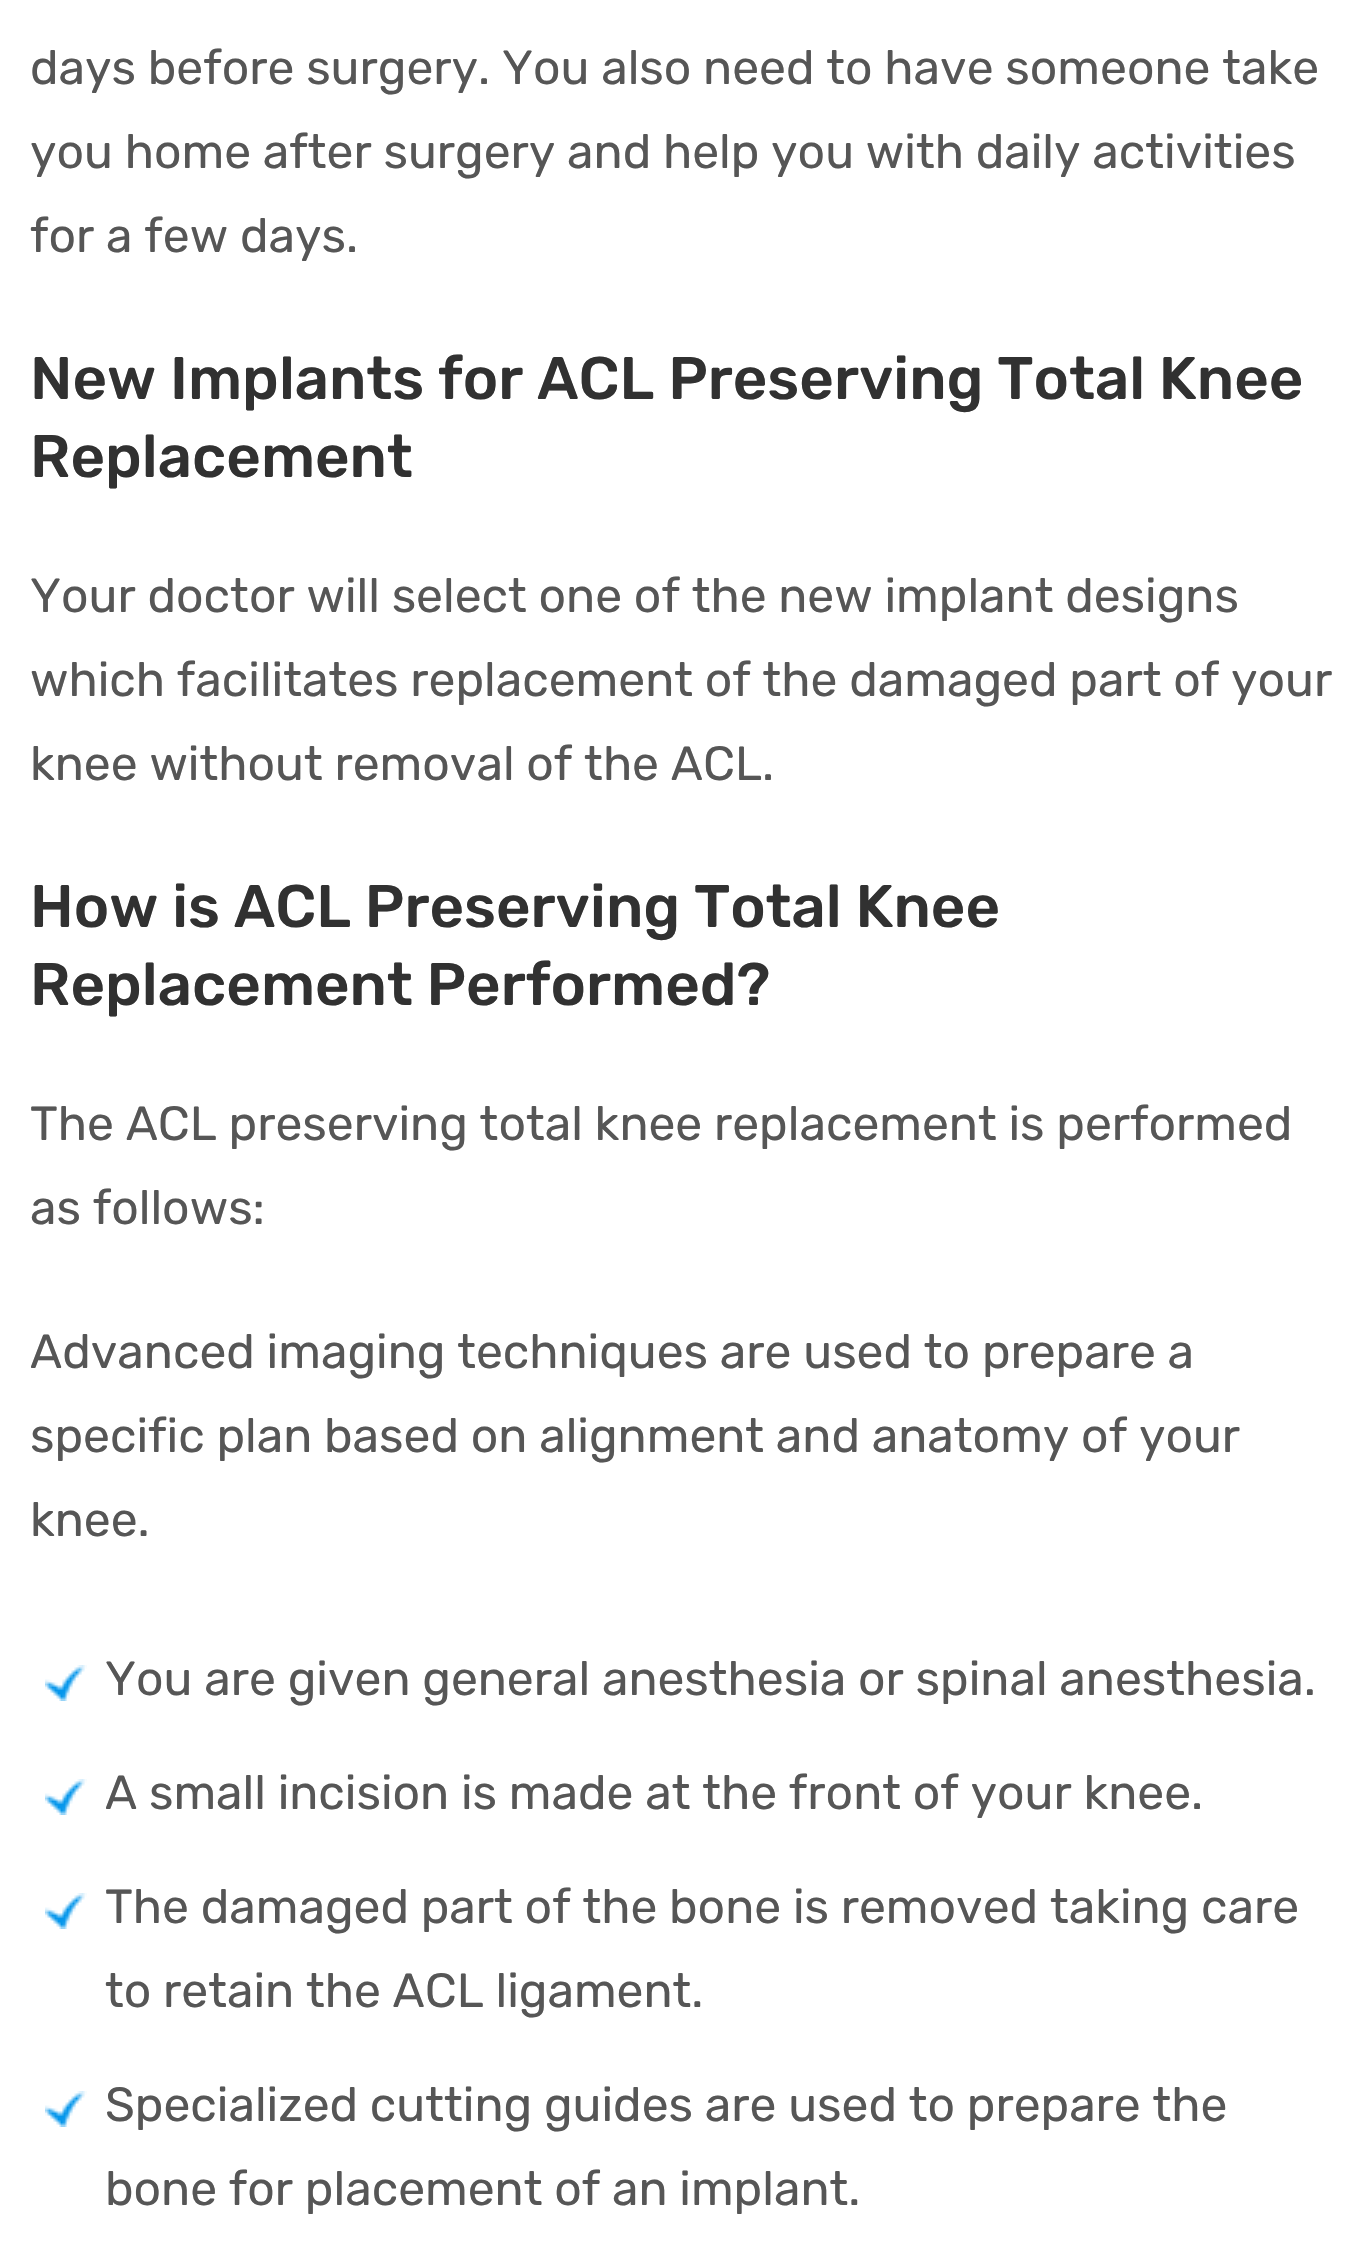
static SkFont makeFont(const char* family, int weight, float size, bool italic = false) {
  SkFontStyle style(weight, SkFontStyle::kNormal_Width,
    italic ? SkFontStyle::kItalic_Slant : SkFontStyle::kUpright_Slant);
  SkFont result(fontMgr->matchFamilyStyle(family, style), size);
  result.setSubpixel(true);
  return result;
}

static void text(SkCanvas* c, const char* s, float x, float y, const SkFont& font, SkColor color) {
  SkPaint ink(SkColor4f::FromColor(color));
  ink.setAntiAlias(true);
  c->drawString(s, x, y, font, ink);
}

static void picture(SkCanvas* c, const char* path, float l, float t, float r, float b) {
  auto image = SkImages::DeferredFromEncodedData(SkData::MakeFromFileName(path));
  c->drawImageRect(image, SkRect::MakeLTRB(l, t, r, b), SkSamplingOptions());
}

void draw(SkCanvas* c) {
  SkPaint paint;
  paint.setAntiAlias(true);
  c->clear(0xffffffff);
  SkFont face1 = makeFont("Rubik", 400, 48);
  text(c, "days before surgery. You also need to have someone take", 30, 84, face1, 0xff565656);
  text(c, "you home after surgery and help you with daily activities", 30, 168, face1, 0xff565656);
  text(c, "for a few days.", 30, 252, face1, 0xff565656);
  SkFont face2 = makeFont("Rubik", 500, 60);
  text(c, "New Implants for ACL Preserving Total Knee", 30, 399, face2, 0xff313131);
  text(c, "Replacement", 30, 477, face2, 0xff313131);
  text(c, "Your doctor will select one of the new implant designs", 30, 612, face1, 0xff565656);
  text(c, "which facilitates replacement of the damaged part of your", 30, 696, face1, 0xff565656);
  text(c, "knee without removal of the ACL.", 30, 780, face1, 0xff565656);
  text(c, "How is ACL Preserving Total Knee", 30, 927, face2, 0xff313131);
  text(c, "Replacement Performed?", 30, 1005, face2, 0xff313131);
  text(c, "The ACL preserving total knee replacement is performed", 30, 1140, face1, 0xff565656);
  text(c, "as follows:", 30, 1224, face1, 0xff565656);
  text(c, "Advanced imaging techniques are used to prepare a", 30, 1368, face1, 0xff565656);
  text(c, "specific plan based on alignment and anatomy of your", 30, 1452, face1, 0xff565656);
  text(c, "knee.", 30, 1536, face1, 0xff565656);
  picture(c, "img_01.png", 45, 1665, 87, 1701);
  text(c, "You are given general anesthesia or spinal anesthesia.", 105, 1695, face1, 0xff565656);
  picture(c, "img_01.png", 45, 1779, 87, 1815);
  text(c, "A small incision is made at the front of your knee.", 105, 1809, face1, 0xff565656);
  picture(c, "img_01.png", 45, 1893, 87, 1929);
  text(c, "The damaged part of the bone is removed taking care", 105, 1923, face1, 0xff565656);
  text(c, "to retain the ACL ligament.", 105, 2007, face1, 0xff565656);
  picture(c, "img_01.png", 45, 2091, 87, 2127);
  text(c, "Specialized cutting guides are used to prepare the", 105, 2121, face1, 0xff565656);
  text(c, "bone for placement of an implant.", 105, 2205, face1, 0xff565656);
}
